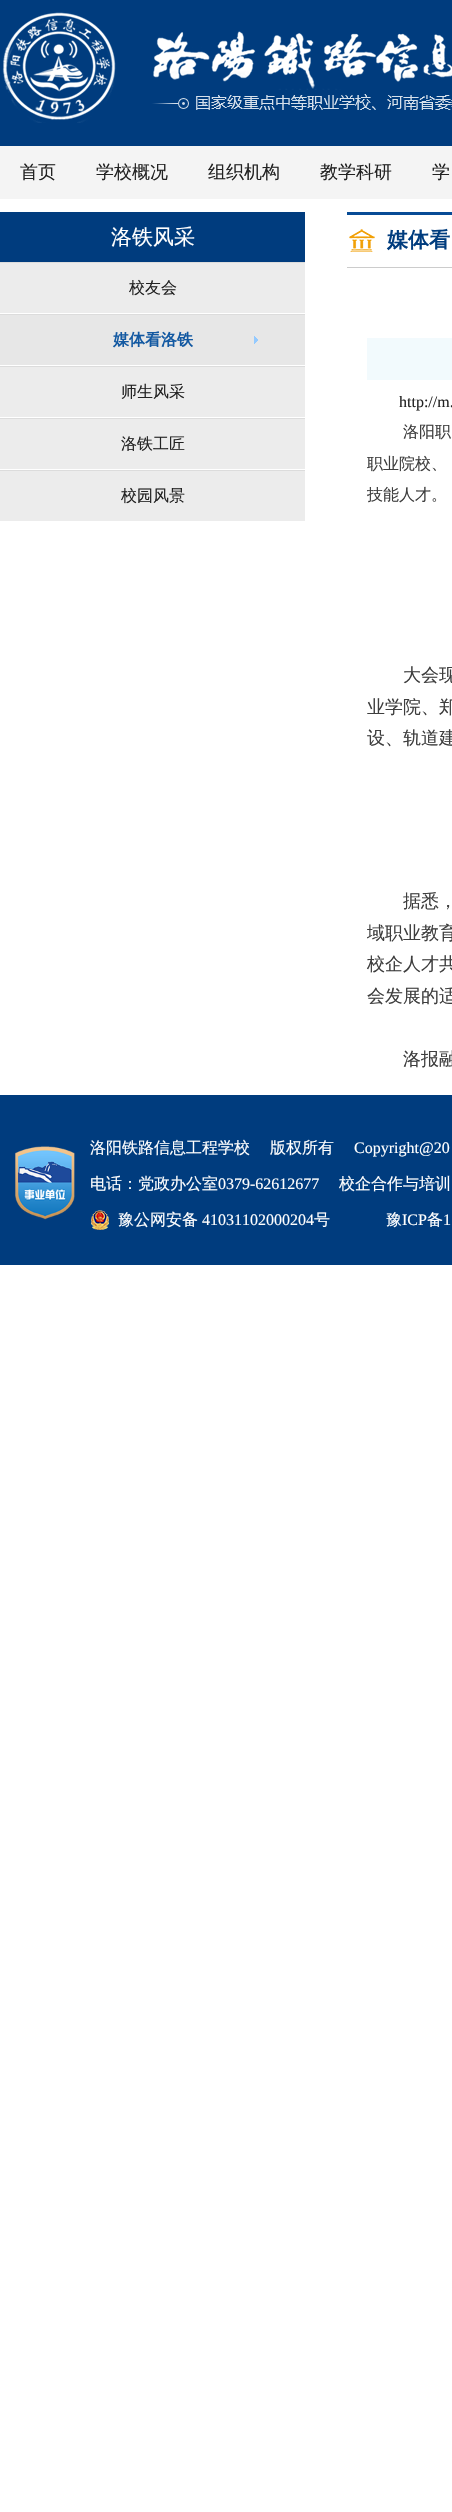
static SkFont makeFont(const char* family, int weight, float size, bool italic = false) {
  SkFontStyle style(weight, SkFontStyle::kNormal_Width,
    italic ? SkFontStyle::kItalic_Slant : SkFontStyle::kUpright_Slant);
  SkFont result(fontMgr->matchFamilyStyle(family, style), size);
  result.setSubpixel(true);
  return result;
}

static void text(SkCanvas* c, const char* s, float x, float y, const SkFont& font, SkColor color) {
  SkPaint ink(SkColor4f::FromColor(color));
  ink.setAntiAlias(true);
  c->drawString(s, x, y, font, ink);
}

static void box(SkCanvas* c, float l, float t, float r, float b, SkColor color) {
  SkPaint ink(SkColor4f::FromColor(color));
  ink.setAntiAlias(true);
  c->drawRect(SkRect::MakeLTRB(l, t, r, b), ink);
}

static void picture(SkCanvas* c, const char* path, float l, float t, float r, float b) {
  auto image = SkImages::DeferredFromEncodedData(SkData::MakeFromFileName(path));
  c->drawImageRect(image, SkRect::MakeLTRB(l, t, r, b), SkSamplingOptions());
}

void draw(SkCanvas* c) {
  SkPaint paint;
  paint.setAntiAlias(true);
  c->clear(0xffffffff);
  box(c, 0, 0, 452, 146, 0xff003c7e);
  picture(c, "img_01.png", 2, 12, 452, 123);
  box(c, 0, 146, 452, 199, 0xfff4f4f4);
  SkFont face1 = makeFont("WenQuanYi Zen Hei", 500, 18);
  text(c, "首页", 20, 178, face1, 0xff222222);
  text(c, "学校概况", 96, 178, face1, 0xff222222);
  text(c, "组织机构", 208, 178, face1, 0xff222222);
  text(c, "教学科研", 320, 178, face1, 0xff222222);
  text(c, "学", 432, 178, face1, 0xff222222);
  box(c, 0, 212, 305, 262, 0xff003c7e);
  SkFont face2 = makeFont("WenQuanYi Zen Hei", 500, 21);
  text(c, "洛铁风采", 111, 244, face2, 0xffffffff);
  box(c, 0, 263, 305, 521, 0xffececec);
  box(c, 0, 262, 305, 263, 0xffdcdcdc);
  box(c, 0, 313, 305, 314, 0xffffffff);
  SkFont face3 = makeFont("WenQuanYi Zen Hei", 500, 16);
  text(c, "校友会", 129, 293, face3, 0xff222222);
  box(c, 0, 314, 305, 315, 0xffdcdcdc);
  box(c, 0, 365, 305, 366, 0xffffffff);
  box(c, 0, 315, 305, 365, 0xffe7e7e7);
  picture(c, "img_02.png", 254, 336, 258, 344);
  SkFont face4 = makeFont("WenQuanYi Zen Hei", 700, 16);
  text(c, "媒体看洛铁", 113, 345, face4, 0xff1359a2);
  box(c, 0, 366, 305, 367, 0xffdcdcdc);
  box(c, 0, 417, 305, 418, 0xffffffff);
  text(c, "师生风采", 121, 397, face3, 0xff222222);
  box(c, 0, 418, 305, 419, 0xffdcdcdc);
  box(c, 0, 469, 305, 470, 0xffffffff);
  text(c, "洛铁工匠", 121, 449, face3, 0xff222222);
  box(c, 0, 470, 305, 471, 0xffdcdcdc);
  text(c, "校园风景", 121, 501, face3, 0xff222222);
  box(c, 347, 212, 452, 215, 0xff074b96);
  picture(c, "img_03.png", 349, 229, 375, 252);
  box(c, 347, 267, 452, 268, 0xffcccccc);
  SkFont face5 = makeFont("WenQuanYi Zen Hei", 700, 21);
  text(c, "媒体看", 387, 247, face5, 0xff003c7e);
  box(c, 367, 338, 452, 380, 0xfff2fafd);
  SkFont face6 = makeFont("Liberation Serif", 400, 16);
  text(c, "http://m.", 399, 407, face6, 0xff222222);
  text(c, "洛阳职", 403, 437, face3, 0xff3e3e3e);
  text(c, "职业院校、", 367, 469, face3, 0xff3e3e3e);
  text(c, "技能人才。", 367, 500, face3, 0xff3e3e3e);
  text(c, "大会现", 403, 681, face1, 0xff3e3e3e);
  text(c, "业学院、郑", 367, 713, face1, 0xff3e3e3e);
  text(c, "设、轨道建", 367, 744, face1, 0xff3e3e3e);
  text(c, "据悉，", 403, 907, face1, 0xff3e3e3e);
  text(c, "域职业教育", 367, 939, face1, 0xff3e3e3e);
  text(c, "校企人才共", 367, 970, face1, 0xff3e3e3e);
  text(c, "会发展的适", 367, 1002, face1, 0xff3e3e3e);
  text(c, "洛报融", 403, 1065, face1, 0xff3e3e3e);
  box(c, 0, 1095, 452, 1265, 0xff003c7e);
  picture(c, "img_04.png", 15, 1146, 75, 1220);
  text(c, "洛阳铁路信息工程学校", 90, 1153, face3, 0xffffffff);
  text(c, "版权所有", 270, 1153, face3, 0xffffffff);
  text(c, "Copyright@20", 354, 1153, face6, 0xffffffff);
  text(c, "电话：党政办公室", 90, 1189, face3, 0xffffffff);
  text(c, "0379-62612677", 218, 1189, face6, 0xffffffff);
  text(c, "校企合作与培训", 339, 1189, face3, 0xffffffff);
  picture(c, "img_05.png", 91, 1210, 109, 1230);
  text(c, "豫公网安备", 118, 1225, face3, 0xffffffff);
  text(c, "41031102000204", 202, 1225, face6, 0xffffffff);
  text(c, "号", 314, 1225, face3, 0xffffffff);
  text(c, "豫", 386, 1225, face3, 0xffffffff);
  text(c, "ICP", 402, 1225, face6, 0xffffffff);
  text(c, "备", 427, 1225, face3, 0xffffffff);
  text(c, "1", 443, 1225, face6, 0xffffffff);
}
